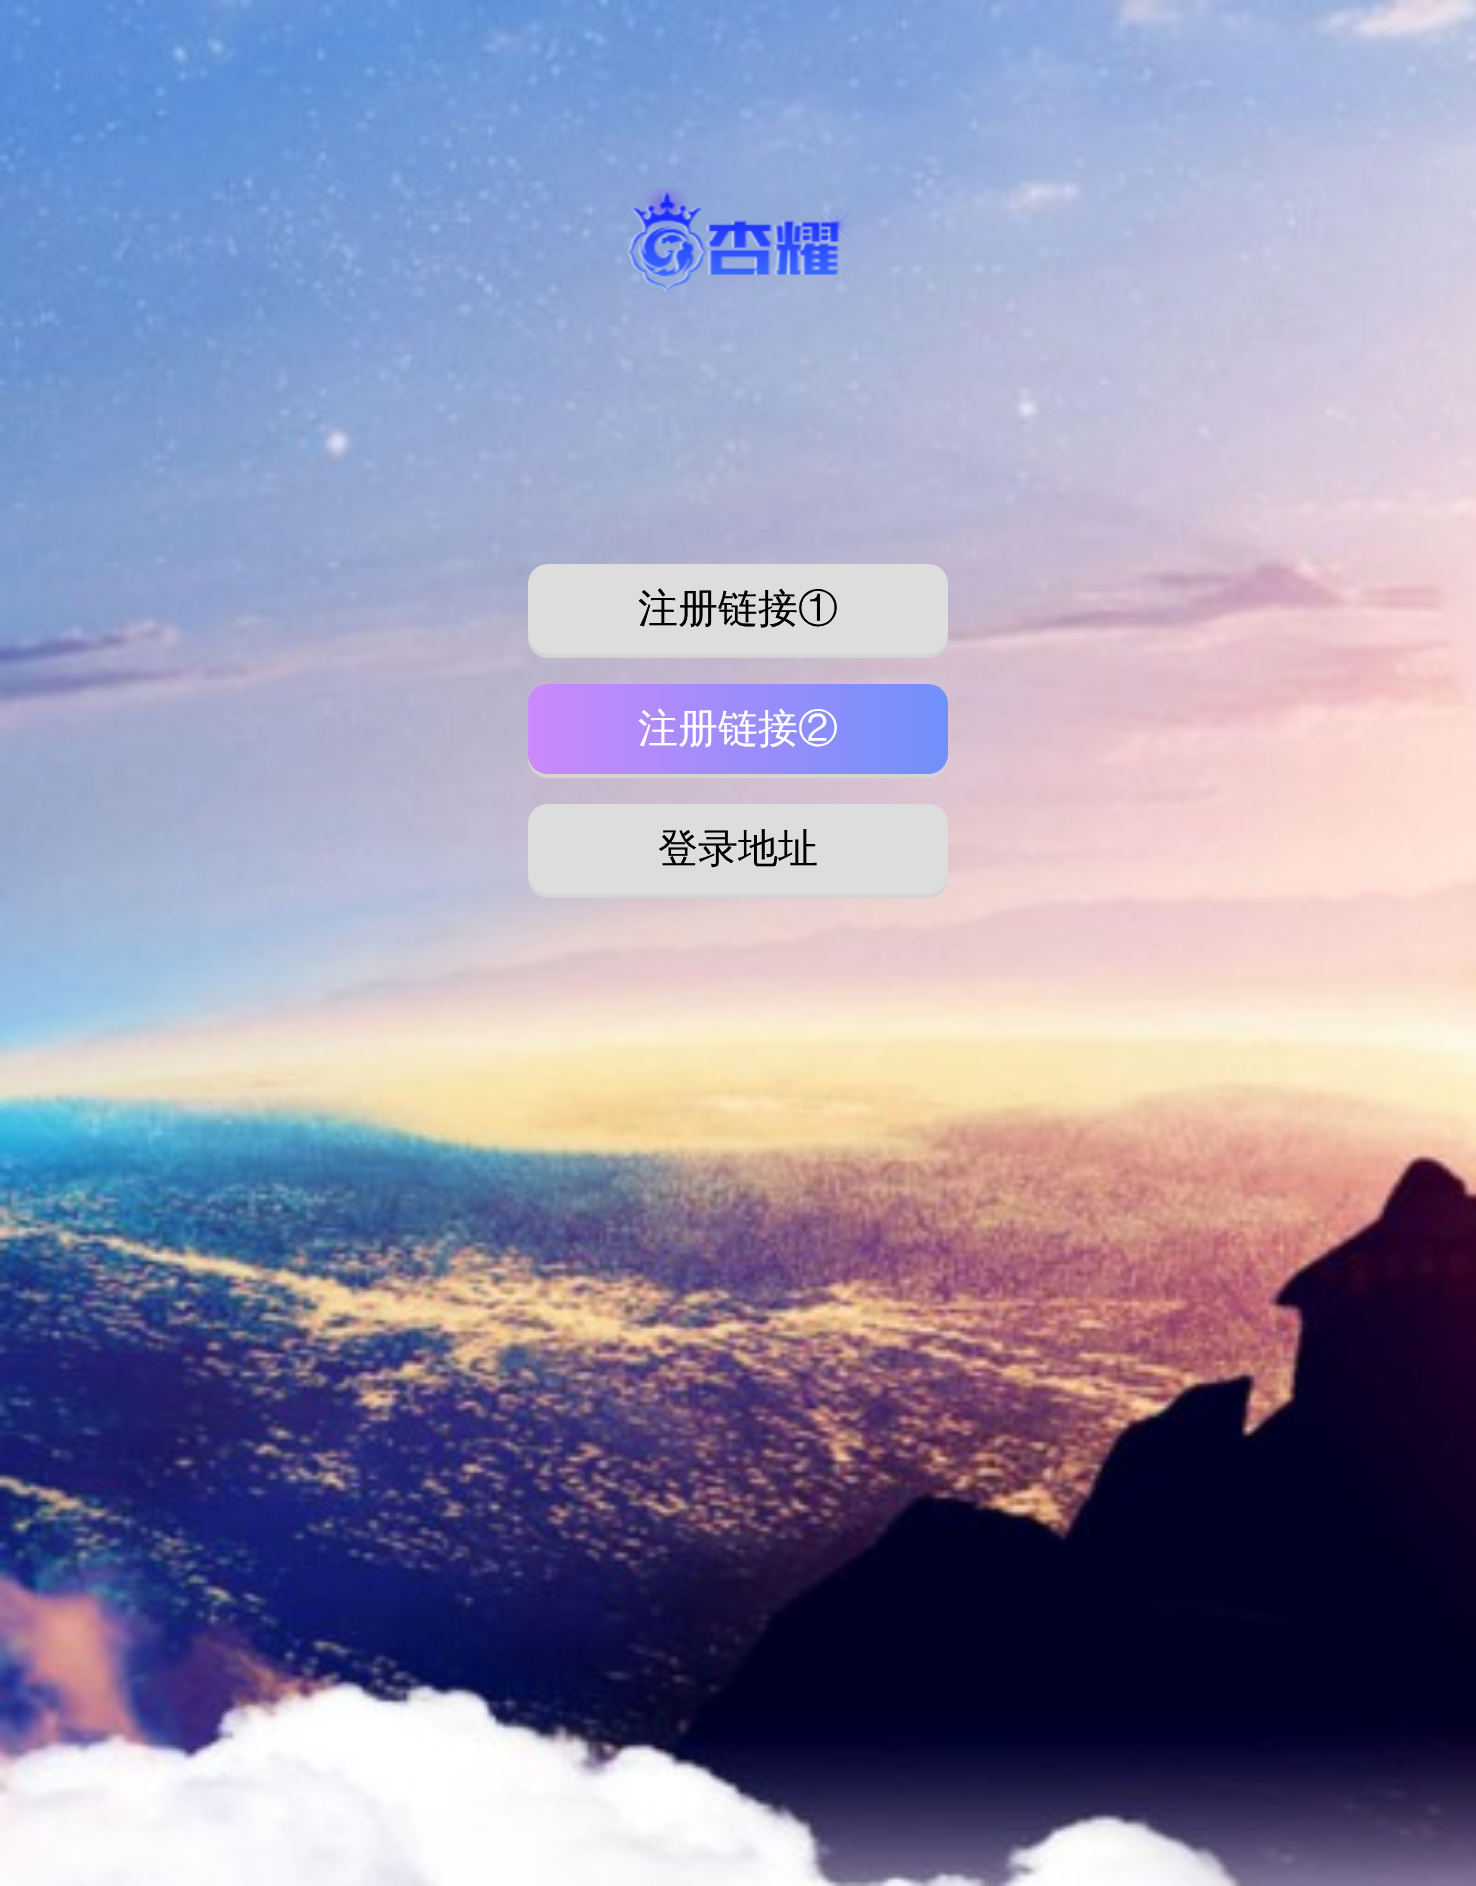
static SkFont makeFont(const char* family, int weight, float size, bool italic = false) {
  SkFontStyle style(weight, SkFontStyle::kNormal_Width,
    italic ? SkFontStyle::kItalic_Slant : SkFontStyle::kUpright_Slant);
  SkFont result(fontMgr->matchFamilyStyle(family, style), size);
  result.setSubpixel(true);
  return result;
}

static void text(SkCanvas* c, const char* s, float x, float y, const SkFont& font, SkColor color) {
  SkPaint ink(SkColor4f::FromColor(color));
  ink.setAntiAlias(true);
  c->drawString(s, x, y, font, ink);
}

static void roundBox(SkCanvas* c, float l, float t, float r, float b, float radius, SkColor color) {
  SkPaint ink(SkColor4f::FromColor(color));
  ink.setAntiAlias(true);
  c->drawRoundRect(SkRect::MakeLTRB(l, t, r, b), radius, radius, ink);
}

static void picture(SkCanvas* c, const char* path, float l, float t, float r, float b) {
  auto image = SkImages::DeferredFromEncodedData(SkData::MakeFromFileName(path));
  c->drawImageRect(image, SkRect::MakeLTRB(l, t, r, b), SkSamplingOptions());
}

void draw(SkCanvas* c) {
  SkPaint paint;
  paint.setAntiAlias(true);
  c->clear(0xffffffff);
  picture(c, "img_01.png", 0, 0, 1476, 1886);
  picture(c, "img_02.png", 626, 187, 852, 291);
  paint.setColor(0xffd5d3d3);
  c->drawPath(SkPathBuilder().moveTo(528, 634).lineTo(528, 638).cubicTo(528, 649, 537, 658, 548, 658).lineTo(928, 658).cubicTo(939, 658, 948, 649, 948, 638).lineTo(948, 634).cubicTo(948, 645, 939, 654, 928, 654).lineTo(548, 654).cubicTo(537, 654, 528, 645, 528, 634).close().detach(), paint);
  roundBox(c, 528, 564, 948, 654, 20, 0xffdddddd);
  SkFont face1 = makeFont("WenQuanYi Zen Hei", 500, 40);
  text(c, "注册链接①", 638, 622, face1, 0xff000000);
  c->drawPath(SkPathBuilder().moveTo(528, 754).lineTo(528, 758).cubicTo(528, 769, 537, 778, 548, 778).lineTo(928, 778).cubicTo(939, 778, 948, 769, 948, 758).lineTo(948, 754).cubicTo(948, 765, 939, 774, 928, 774).lineTo(548, 774).cubicTo(537, 774, 528, 765, 528, 754).close().detach(), paint);
  {
    const SkColor colors[] = {0xffcb89fb, 0xff7090fb};
    const float stops[] = {0, 1};
    const SkPoint ends[] = {{528, 729}, {948, 729}};
    paint.setShader(SkGradientShader::MakeLinear(ends, colors, stops, 2, SkTileMode::kClamp));
    paint.setAlpha(255);
  }
  c->drawRoundRect(SkRect::MakeLTRB(528, 684, 948, 774), 20, 20, paint);
  text(c, "注册链接②", 638, 742, face1, 0xffffffff);
  paint.setShader(nullptr);
  paint.setColor(0xffd5d3d3);
  c->drawPath(SkPathBuilder().moveTo(528, 874).lineTo(528, 878).cubicTo(528, 889, 537, 898, 548, 898).lineTo(928, 898).cubicTo(939, 898, 948, 889, 948, 878).lineTo(948, 874).cubicTo(948, 885, 939, 894, 928, 894).lineTo(548, 894).cubicTo(537, 894, 528, 885, 528, 874).close().detach(), paint);
  roundBox(c, 528, 804, 948, 894, 20, 0xffdddddd);
  text(c, "登录地址", 658, 862, face1, 0xff000000);
}
